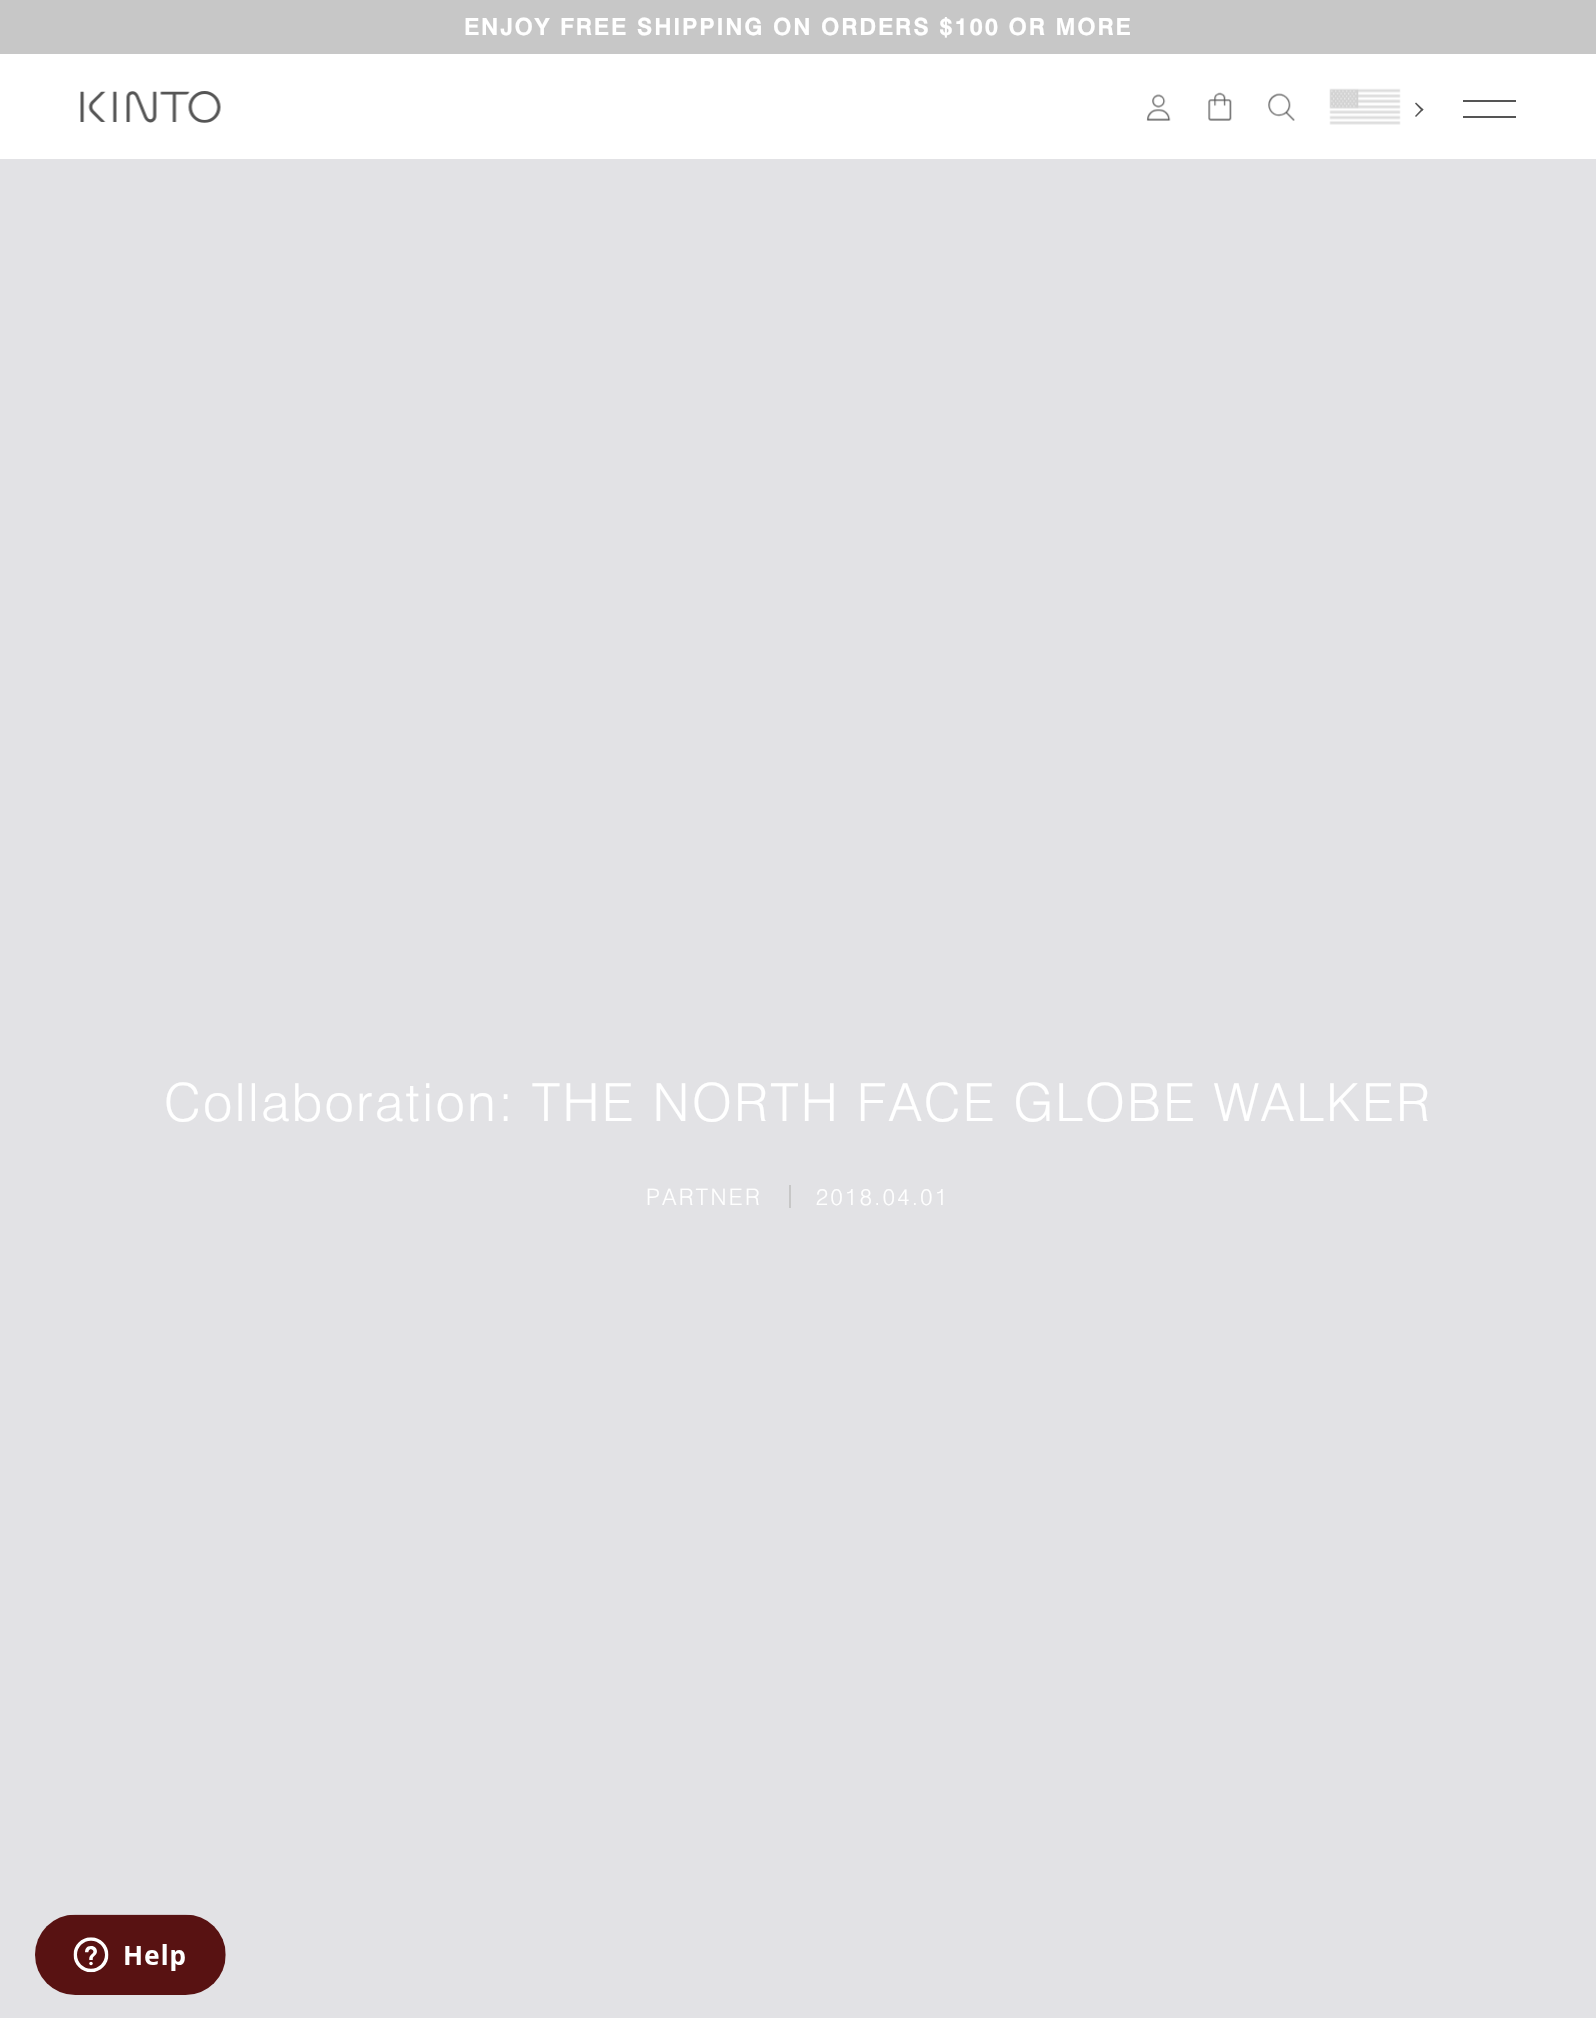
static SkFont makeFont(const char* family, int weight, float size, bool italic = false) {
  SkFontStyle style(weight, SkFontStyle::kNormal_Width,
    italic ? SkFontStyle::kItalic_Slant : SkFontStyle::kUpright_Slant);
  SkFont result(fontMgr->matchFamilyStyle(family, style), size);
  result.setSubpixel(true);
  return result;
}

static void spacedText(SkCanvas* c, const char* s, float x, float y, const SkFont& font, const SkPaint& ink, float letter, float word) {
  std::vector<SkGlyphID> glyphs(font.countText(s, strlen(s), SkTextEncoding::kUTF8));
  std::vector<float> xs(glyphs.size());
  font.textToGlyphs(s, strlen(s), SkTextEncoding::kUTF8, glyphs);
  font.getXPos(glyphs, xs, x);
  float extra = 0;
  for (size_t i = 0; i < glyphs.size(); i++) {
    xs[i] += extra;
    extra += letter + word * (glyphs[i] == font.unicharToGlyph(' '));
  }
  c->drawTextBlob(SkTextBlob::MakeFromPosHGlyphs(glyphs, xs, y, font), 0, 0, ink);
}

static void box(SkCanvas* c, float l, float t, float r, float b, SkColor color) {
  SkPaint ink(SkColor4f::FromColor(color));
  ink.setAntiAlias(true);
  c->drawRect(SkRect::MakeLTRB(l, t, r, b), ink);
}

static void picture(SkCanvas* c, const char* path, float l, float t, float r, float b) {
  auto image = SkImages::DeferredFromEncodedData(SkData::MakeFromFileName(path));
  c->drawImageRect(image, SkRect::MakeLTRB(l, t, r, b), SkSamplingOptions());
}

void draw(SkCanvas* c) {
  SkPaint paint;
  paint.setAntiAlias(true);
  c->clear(0xffffffff);
  box(c, 0, 0, 1596, 54, 0xffc7c7c7);
  SkFont face1 = makeFont("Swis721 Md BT", 700, 22.75f);
  paint.setColor(0xffffffff);
  spacedText(c, "ENJOY FREE SHIPPING ON ORDERS $100 OR MORE", 464, 35, face1, paint, 2.45f, 0);
  picture(c, "img_01.png", 80, 91, 221, 123);
  picture(c, "img_02.png", 1146, 94, 1171, 121);
  picture(c, "img_03.png", 1208, 92, 1232, 121);
  picture(c, "img_04.png", 1268, 93, 1295, 121);
  picture(c, "img_05.png", 1329, 88, 1401, 125);
  paint.setColor(0xff555555);
  c->drawPath(SkPathBuilder().moveTo(1416, 102.5f).lineTo(1423.5f, 109.5f).lineTo(1422, 111).lineTo(1415, 103.5f).close().detach(), paint);
  c->drawPath(SkPathBuilder().moveTo(1422, 108.5f).lineTo(1423.5f, 109.5f).lineTo(1416, 117).lineTo(1415, 116).close().detach(), paint);
  box(c, 1463, 100, 1516, 102, 0xff555555);
  box(c, 1463, 116, 1516, 118, 0xff555555);
  box(c, 0, 159, 1596, 2018, 0xffe2e2e5);
  SkFont face2 = makeFont("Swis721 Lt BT", 300, 52.5f);
  paint.setColor(0xffffffff);
  spacedText(c, "Collaboration: THE NORTH FACE GLOBE WALKER", 164, 1121, face2, paint, 2.45f, 0);
  SkFont face3 = makeFont("Swis721 Lt BT", 300, 22.75f);
  spacedText(c, "PARTNER", 646, 1205, face3, paint, 2.45f, 0);
  box(c, 789, 1185, 791, 1208, 0xffc7c7c7);
  spacedText(c, "2018.04.01", 816, 1205, face3, paint, 2.45f, 0);
  picture(c, "img_06.png", 35, 1914, 226, 1995);
}
